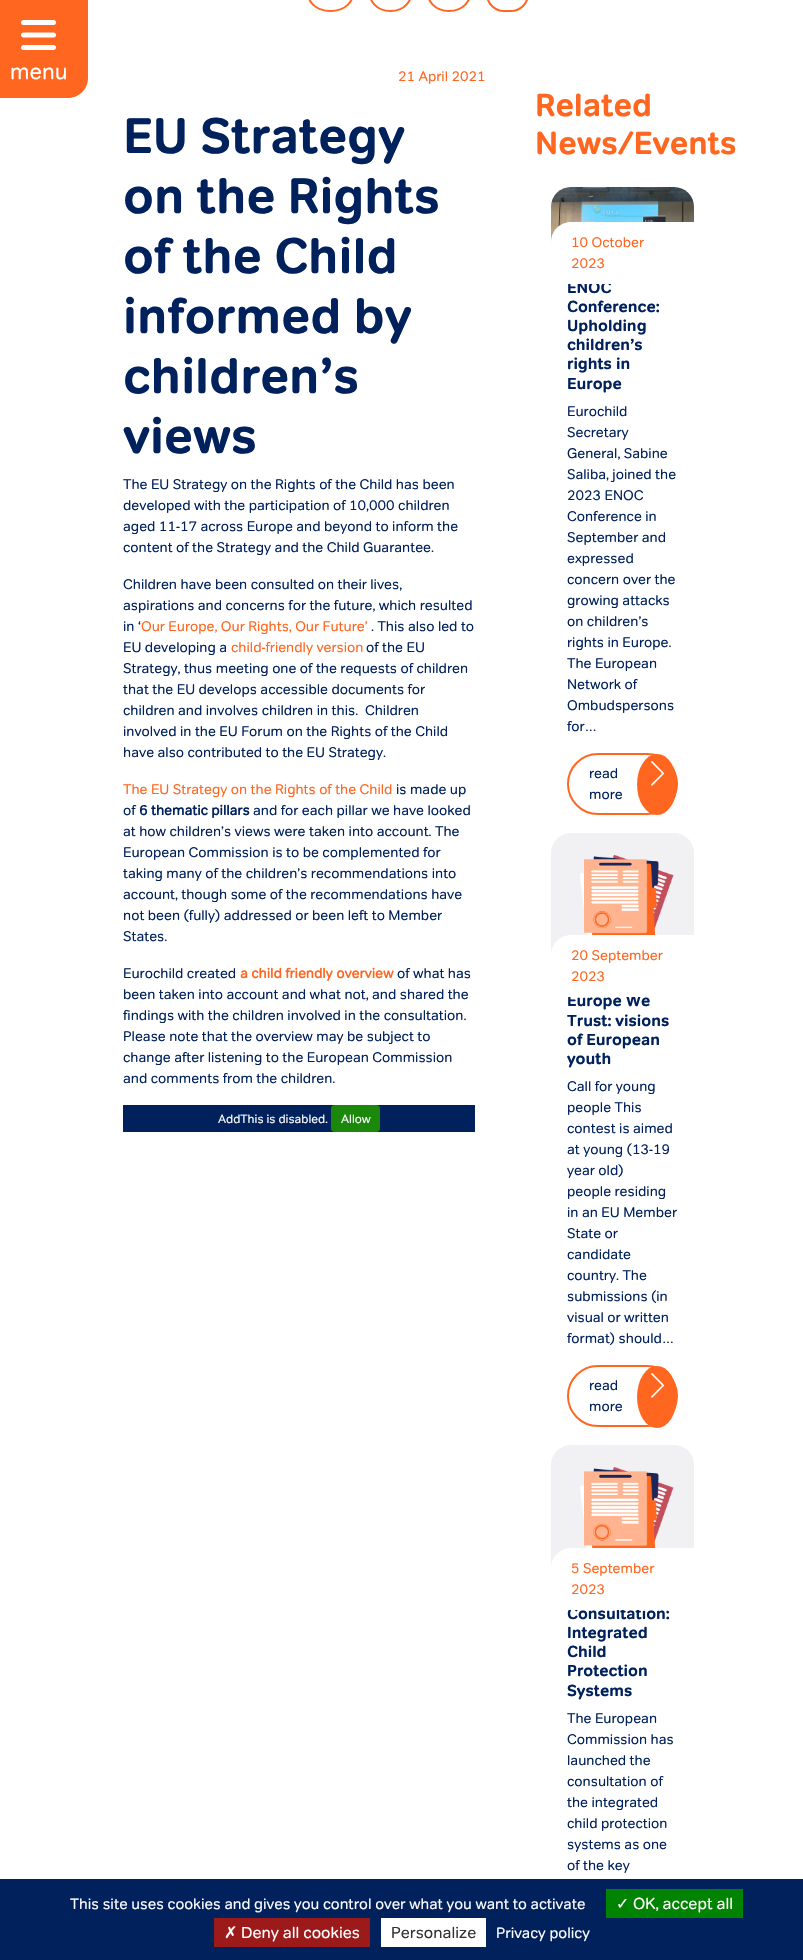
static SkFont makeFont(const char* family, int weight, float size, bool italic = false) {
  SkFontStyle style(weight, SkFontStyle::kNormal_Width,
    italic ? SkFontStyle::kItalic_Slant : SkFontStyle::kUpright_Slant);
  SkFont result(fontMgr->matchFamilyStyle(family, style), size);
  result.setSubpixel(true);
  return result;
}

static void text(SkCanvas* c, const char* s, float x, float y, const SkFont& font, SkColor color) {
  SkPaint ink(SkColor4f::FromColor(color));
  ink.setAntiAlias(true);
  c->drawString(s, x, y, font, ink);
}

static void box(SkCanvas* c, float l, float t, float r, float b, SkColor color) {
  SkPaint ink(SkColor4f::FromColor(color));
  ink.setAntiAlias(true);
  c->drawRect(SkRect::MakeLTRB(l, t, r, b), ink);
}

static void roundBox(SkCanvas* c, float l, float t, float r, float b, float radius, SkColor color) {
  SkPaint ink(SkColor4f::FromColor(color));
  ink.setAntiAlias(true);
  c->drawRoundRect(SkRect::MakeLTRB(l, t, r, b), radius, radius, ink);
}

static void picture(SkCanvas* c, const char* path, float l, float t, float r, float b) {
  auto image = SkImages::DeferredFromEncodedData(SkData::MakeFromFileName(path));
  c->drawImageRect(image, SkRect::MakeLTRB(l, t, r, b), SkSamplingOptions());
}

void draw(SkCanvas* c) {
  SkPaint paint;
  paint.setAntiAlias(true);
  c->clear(0xffffffff);
  paint.setStyle(SkPaint::kStroke_Style);
  paint.setStrokeWidth(2);
  paint.setColor(0xffff661f);
  c->drawPath(SkPathBuilder().moveTo(330.5f, -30).cubicTo(361.5f, -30, 361.5f, 11, 330.5f, 11).cubicTo(299.5f, 11, 299.5f, -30, 330.5f, -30).close().detach(), paint);
  c->drawPath(SkPathBuilder().moveTo(390.5f, -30).cubicTo(419, -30, 419, 11, 390.5f, 11).cubicTo(362, 11, 362, -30, 390.5f, -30).close().detach(), paint);
  c->drawPath(SkPathBuilder().moveTo(449, -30).cubicTo(478, -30, 478, 11, 449, 11).cubicTo(420, 11, 420, -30, 449, -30).close().detach(), paint);
  c->drawRoundRect(SkRect::MakeLTRB(487, -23, 528, 11), 20.5f, 20.5f, paint);
  paint.setStyle(SkPaint::kFill_Style);
  c->drawPath(SkPathBuilder().moveTo(0, 0).lineTo(88, 0).lineTo(88, 78).cubicTo(88, 89, 79, 98, 68, 98).lineTo(0, 98).close().detach(), paint);
  picture(c, "img_01.png", 21, 20, 56, 50);
  SkFont face1 = makeFont("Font", 400, 22);
  text(c, "menu", 10, 79, face1, 0xffffffff);
  SkFont face2 = makeFont("Font", 400, 14);
  text(c, "21 April 2021", 398, 81, face2, 0xffff661f);
  SkFont face3 = makeFont("Font", 700, 50);
  text(c, "EU Strategy", 123, 153, face3, 0xff00215c);
  text(c, "on the Rights", 123, 213, face3, 0xff00215c);
  text(c, "of the Child", 123, 273, face3, 0xff00215c);
  text(c, "informed by", 123, 333, face3, 0xff00215c);
  text(c, "children’s", 123, 393, face3, 0xff00215c);
  text(c, "views", 123, 453, face3, 0xff00215c);
  text(c, "The EU Strategy on the Rights of the Child has been", 123, 489, face2, 0xff00215c);
  text(c, "developed with the participation of 10,000 children", 123, 510, face2, 0xff00215c);
  text(c, "aged 11-17 across Europe and beyond to inform the", 123, 531, face2, 0xff00215c);
  text(c, "content of the Strategy and the Child Guarantee.", 123, 552, face2, 0xff00215c);
  text(c, "Children have been consulted on their lives,", 123, 589, face2, 0xff00215c);
  text(c, "aspirations and concerns for the future, which resulted", 123, 610, face2, 0xff00215c);
  text(c, "in ‘", 123, 631, face2, 0xff00215c);
  text(c, "Our Europe, Our Rights, Our Future’", 141, 631, face2, 0xffff661f);
  text(c, ". This also led to", 371, 631, face2, 0xff00215c);
  text(c, "EU developing a", 123, 652, face2, 0xff00215c);
  text(c, "child-friendly version", 231, 652, face2, 0xffff661f);
  text(c, "of the EU", 366, 652, face2, 0xff00215c);
  text(c, "Strategy, thus meeting one of the requests of children", 123, 673, face2, 0xff00215c);
  text(c, "that the EU develops accessible documents for", 123, 694, face2, 0xff00215c);
  text(c, "children and involves children in this.  Children", 123, 715, face2, 0xff00215c);
  text(c, "involved in the EU Forum on the Rights of the Child", 123, 736, face2, 0xff00215c);
  text(c, "have also contributed to the EU Strategy.", 123, 757, face2, 0xff00215c);
  text(c, "The EU Strategy on the Rights of the Child", 123, 794, face2, 0xffff661f);
  text(c, "is made up", 396, 794, face2, 0xff00215c);
  text(c, "of", 123, 815, face2, 0xff00215c);
  SkFont face4 = makeFont("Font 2", 700, 14);
  text(c, "6 thematic pillars", 139, 815, face4, 0xff00215c);
  text(c, "and for each pillar we have looked", 253, 815, face2, 0xff00215c);
  text(c, "at how children’s views were taken into account. The", 123, 836, face2, 0xff00215c);
  text(c, "European Commission is to be complemented for", 123, 857, face2, 0xff00215c);
  text(c, "taking many of the children’s recommendations into", 123, 878, face2, 0xff00215c);
  text(c, "account, though some of the recommendations have", 123, 899, face2, 0xff00215c);
  text(c, "not been (fully) addressed or been left to Member", 123, 920, face2, 0xff00215c);
  text(c, "States.", 123, 941, face2, 0xff00215c);
  text(c, "Eurochild created", 123, 978, face2, 0xff00215c);
  text(c, "a child friendly overview", 240, 978, face4, 0xffff661f);
  text(c, "of what has", 397, 978, face2, 0xff00215c);
  text(c, "been taken into account and what not, and shared the", 123, 999, face2, 0xff00215c);
  text(c, "findings with the children involved in the consultation.", 123, 1020, face2, 0xff00215c);
  text(c, "Please note that the overview may be subject to", 123, 1041, face2, 0xff00215c);
  text(c, "change after listening to the European Commission", 123, 1062, face2, 0xff00215c);
  text(c, "and comments from the children.", 123, 1083, face2, 0xff00215c);
  box(c, 123, 1105, 475, 1132, 0xff00215c);
  SkFont face5 = makeFont("Font", 400, 12);
  text(c, "AddThis is disabled.", 218, 1123, face5, 0xffffffff);
  roundBox(c, 331, 1105, 380, 1132, 4, 0xff1b870b);
  text(c, "Allow", 341, 1123, face5, 0xffffffff);
  SkFont face6 = makeFont("Font", 700, 32);
  text(c, "Related", 535, 116, face6, 0xffff661f);
  text(c, "News/Events", 535, 154, face6, 0xffff661f);
  paint.setColor(0xfff1f1f3);
  c->drawPath(SkPathBuilder().moveTo(571, 187).lineTo(674, 187).cubicTo(685, 187, 694, 196, 694, 207).lineTo(694, 262).lineTo(551, 262).lineTo(551, 207).cubicTo(551, 196, 560, 187, 571, 187).close().detach(), paint);
  picture(c, "img_02.png", 551, 187, 694, 242);
  SkFont face7 = makeFont("Font", 700, 16);
  text(c, "ENOC", 567, 293, face7, 0xff00215c);
  paint.setColor(0xffffffff);
  c->drawPath(SkPathBuilder().moveTo(571, 222).lineTo(694, 222).lineTo(694, 284).lineTo(551, 284).lineTo(551, 242).cubicTo(551, 231, 560, 222, 571, 222).close().detach(), paint);
  text(c, "10 October", 571, 247, face2, 0xffff661f);
  text(c, "2023", 571, 268, face2, 0xffff661f);
  text(c, "Conference:", 567, 312, face7, 0xff00215c);
  text(c, "Upholding", 567, 331, face7, 0xff00215c);
  text(c, "children’s", 567, 350, face7, 0xff00215c);
  text(c, "rights in", 567, 369, face7, 0xff00215c);
  text(c, "Europe", 567, 389, face7, 0xff00215c);
  text(c, "Eurochild", 567, 416, face2, 0xff00215c);
  text(c, "Secretary", 567, 437, face2, 0xff00215c);
  text(c, "General, Sabine", 567, 458, face2, 0xff00215c);
  text(c, "Saliba, joined the", 567, 479, face2, 0xff00215c);
  text(c, "2023 ENOC", 567, 500, face2, 0xff00215c);
  text(c, "Conference in", 567, 521, face2, 0xff00215c);
  text(c, "September and", 567, 542, face2, 0xff00215c);
  text(c, "expressed", 567, 563, face2, 0xff00215c);
  text(c, "concern over the", 567, 584, face2, 0xff00215c);
  text(c, "growing attacks", 567, 605, face2, 0xff00215c);
  text(c, "on children’s", 567, 626, face2, 0xff00215c);
  text(c, "rights in Europe.", 567, 647, face2, 0xff00215c);
  text(c, "The European", 567, 668, face2, 0xff00215c);
  text(c, "Network of", 567, 689, face2, 0xff00215c);
  text(c, "Ombudspersons", 567, 710, face2, 0xff00215c);
  text(c, "for…", 567, 731, face2, 0xff00215c);
  paint.setStyle(SkPaint::kStroke_Style);
  paint.setColor(0xffff661f);
  c->drawRoundRect(SkRect::MakeLTRB(568, 754, 677, 814), 30, 30, paint);
  text(c, "read", 589, 778, face2, 0xff00215c);
  paint.setStyle(SkPaint::kFill_Style);
  c->drawOval(SkRect::MakeLTRB(637, 754, 677, 815), paint);
  picture(c, "img_03.png", 651, 761, 665, 786);
  text(c, "more", 589, 799, face2, 0xff00215c);
  paint.setColor(0xfff1f1f3);
  c->drawPath(SkPathBuilder().moveTo(571, 833).lineTo(674, 833).cubicTo(685, 833, 694, 842, 694, 853).lineTo(694, 975).lineTo(551, 975).lineTo(551, 853).cubicTo(551, 842, 560, 833, 571, 833).close().detach(), paint);
  picture(c, "img_04.png", 580, 854, 674, 935);
  text(c, "Europe We", 567, 1006, face7, 0xff00215c);
  paint.setColor(0xffffffff);
  c->drawPath(SkPathBuilder().moveTo(571, 935).lineTo(694, 935).lineTo(694, 997).lineTo(551, 997).lineTo(551, 955).cubicTo(551, 944, 560, 935, 571, 935).close().detach(), paint);
  text(c, "20 September", 571, 960, face2, 0xffff661f);
  text(c, "2023", 571, 981, face2, 0xffff661f);
  text(c, "Trust: visions", 567, 1026, face7, 0xff00215c);
  text(c, "of European", 567, 1045, face7, 0xff00215c);
  text(c, "youth", 567, 1064, face7, 0xff00215c);
  text(c, "Call for young", 567, 1091, face2, 0xff00215c);
  text(c, "people This", 567, 1112, face2, 0xff00215c);
  text(c, "contest is aimed", 567, 1133, face2, 0xff00215c);
  text(c, "at young (13-19", 567, 1154, face2, 0xff00215c);
  text(c, "year old)", 567, 1175, face2, 0xff00215c);
  text(c, "people residing", 567, 1196, face2, 0xff00215c);
  text(c, "in an EU Member", 567, 1217, face2, 0xff00215c);
  text(c, "State or", 567, 1238, face2, 0xff00215c);
  text(c, "candidate", 567, 1259, face2, 0xff00215c);
  text(c, "country. The", 567, 1280, face2, 0xff00215c);
  text(c, "submissions (in", 567, 1301, face2, 0xff00215c);
  text(c, "visual or written", 567, 1322, face2, 0xff00215c);
  text(c, "format) should…", 567, 1343, face2, 0xff00215c);
  paint.setStyle(SkPaint::kStroke_Style);
  paint.setColor(0xffff661f);
  c->drawRoundRect(SkRect::MakeLTRB(568, 1366, 677, 1426), 30, 30, paint);
  text(c, "read", 589, 1390, face2, 0xff00215c);
  paint.setStyle(SkPaint::kFill_Style);
  c->drawOval(SkRect::MakeLTRB(637, 1366, 677, 1428), paint);
  picture(c, "img_03.png", 651, 1373, 665, 1398);
  text(c, "more", 589, 1411, face2, 0xff00215c);
  paint.setColor(0xfff1f1f3);
  c->drawPath(SkPathBuilder().moveTo(571, 1445).lineTo(674, 1445).cubicTo(685, 1445, 694, 1454, 694, 1465).lineTo(694, 1588).lineTo(551, 1588).lineTo(551, 1465).cubicTo(551, 1454, 560, 1445, 571, 1445).close().detach(), paint);
  picture(c, "img_05.png", 580, 1467, 674, 1548);
  text(c, "Consultation:", 567, 1619, face7, 0xff00215c);
  paint.setColor(0xffffffff);
  c->drawPath(SkPathBuilder().moveTo(571, 1548).lineTo(694, 1548).lineTo(694, 1610).lineTo(551, 1610).lineTo(551, 1568).cubicTo(551, 1557, 560, 1548, 571, 1548).close().detach(), paint);
  text(c, "5 September", 571, 1573, face2, 0xffff661f);
  text(c, "2023", 571, 1594, face2, 0xffff661f);
  text(c, "Integrated", 567, 1638, face7, 0xff00215c);
  text(c, "Child", 567, 1657, face7, 0xff00215c);
  text(c, "Protection", 567, 1676, face7, 0xff00215c);
  text(c, "Systems", 567, 1696, face7, 0xff00215c);
  text(c, "The European", 567, 1723, face2, 0xff00215c);
  text(c, "Commission has", 567, 1744, face2, 0xff00215c);
  text(c, "launched the", 567, 1765, face2, 0xff00215c);
  text(c, "consultation of", 567, 1786, face2, 0xff00215c);
  text(c, "the integrated", 567, 1807, face2, 0xff00215c);
  text(c, "child protection", 567, 1828, face2, 0xff00215c);
  text(c, "systems as one", 567, 1849, face2, 0xff00215c);
  text(c, "of the key", 567, 1870, face2, 0xff00215c);
  box(c, 0, 1879, 803, 1960, 0xff00215c);
  SkFont face8 = makeFont("Font", 400, 15);
  text(c, "This site uses cookies and gives you control over what you want to activate", 70, 1909, face8, 0xffffffff);
  box(c, 606, 1889, 743, 1918, 0xff008300);
  SkFont face9 = makeFont("DejaVu Sans", 400, 16);
  text(c, "✓", 616, 1909, face9, 0xffffffff);
  SkFont face10 = makeFont("Font", 400, 16);
  text(c, "OK, accept all", 633, 1909, face10, 0xffffffff);
  box(c, 214, 1918, 370, 1947, 0xff9c1a1a);
  text(c, "✗", 224, 1938, face9, 0xffffffff);
  text(c, "Deny all cookies", 241, 1938, face10, 0xffffffff);
  box(c, 381, 1918, 486, 1947, 0xffffffff);
  text(c, "Personalize", 391, 1938, face10, 0xff333333);
  text(c, "Privacy policy", 496, 1938, face8, 0xffffffff);
}
